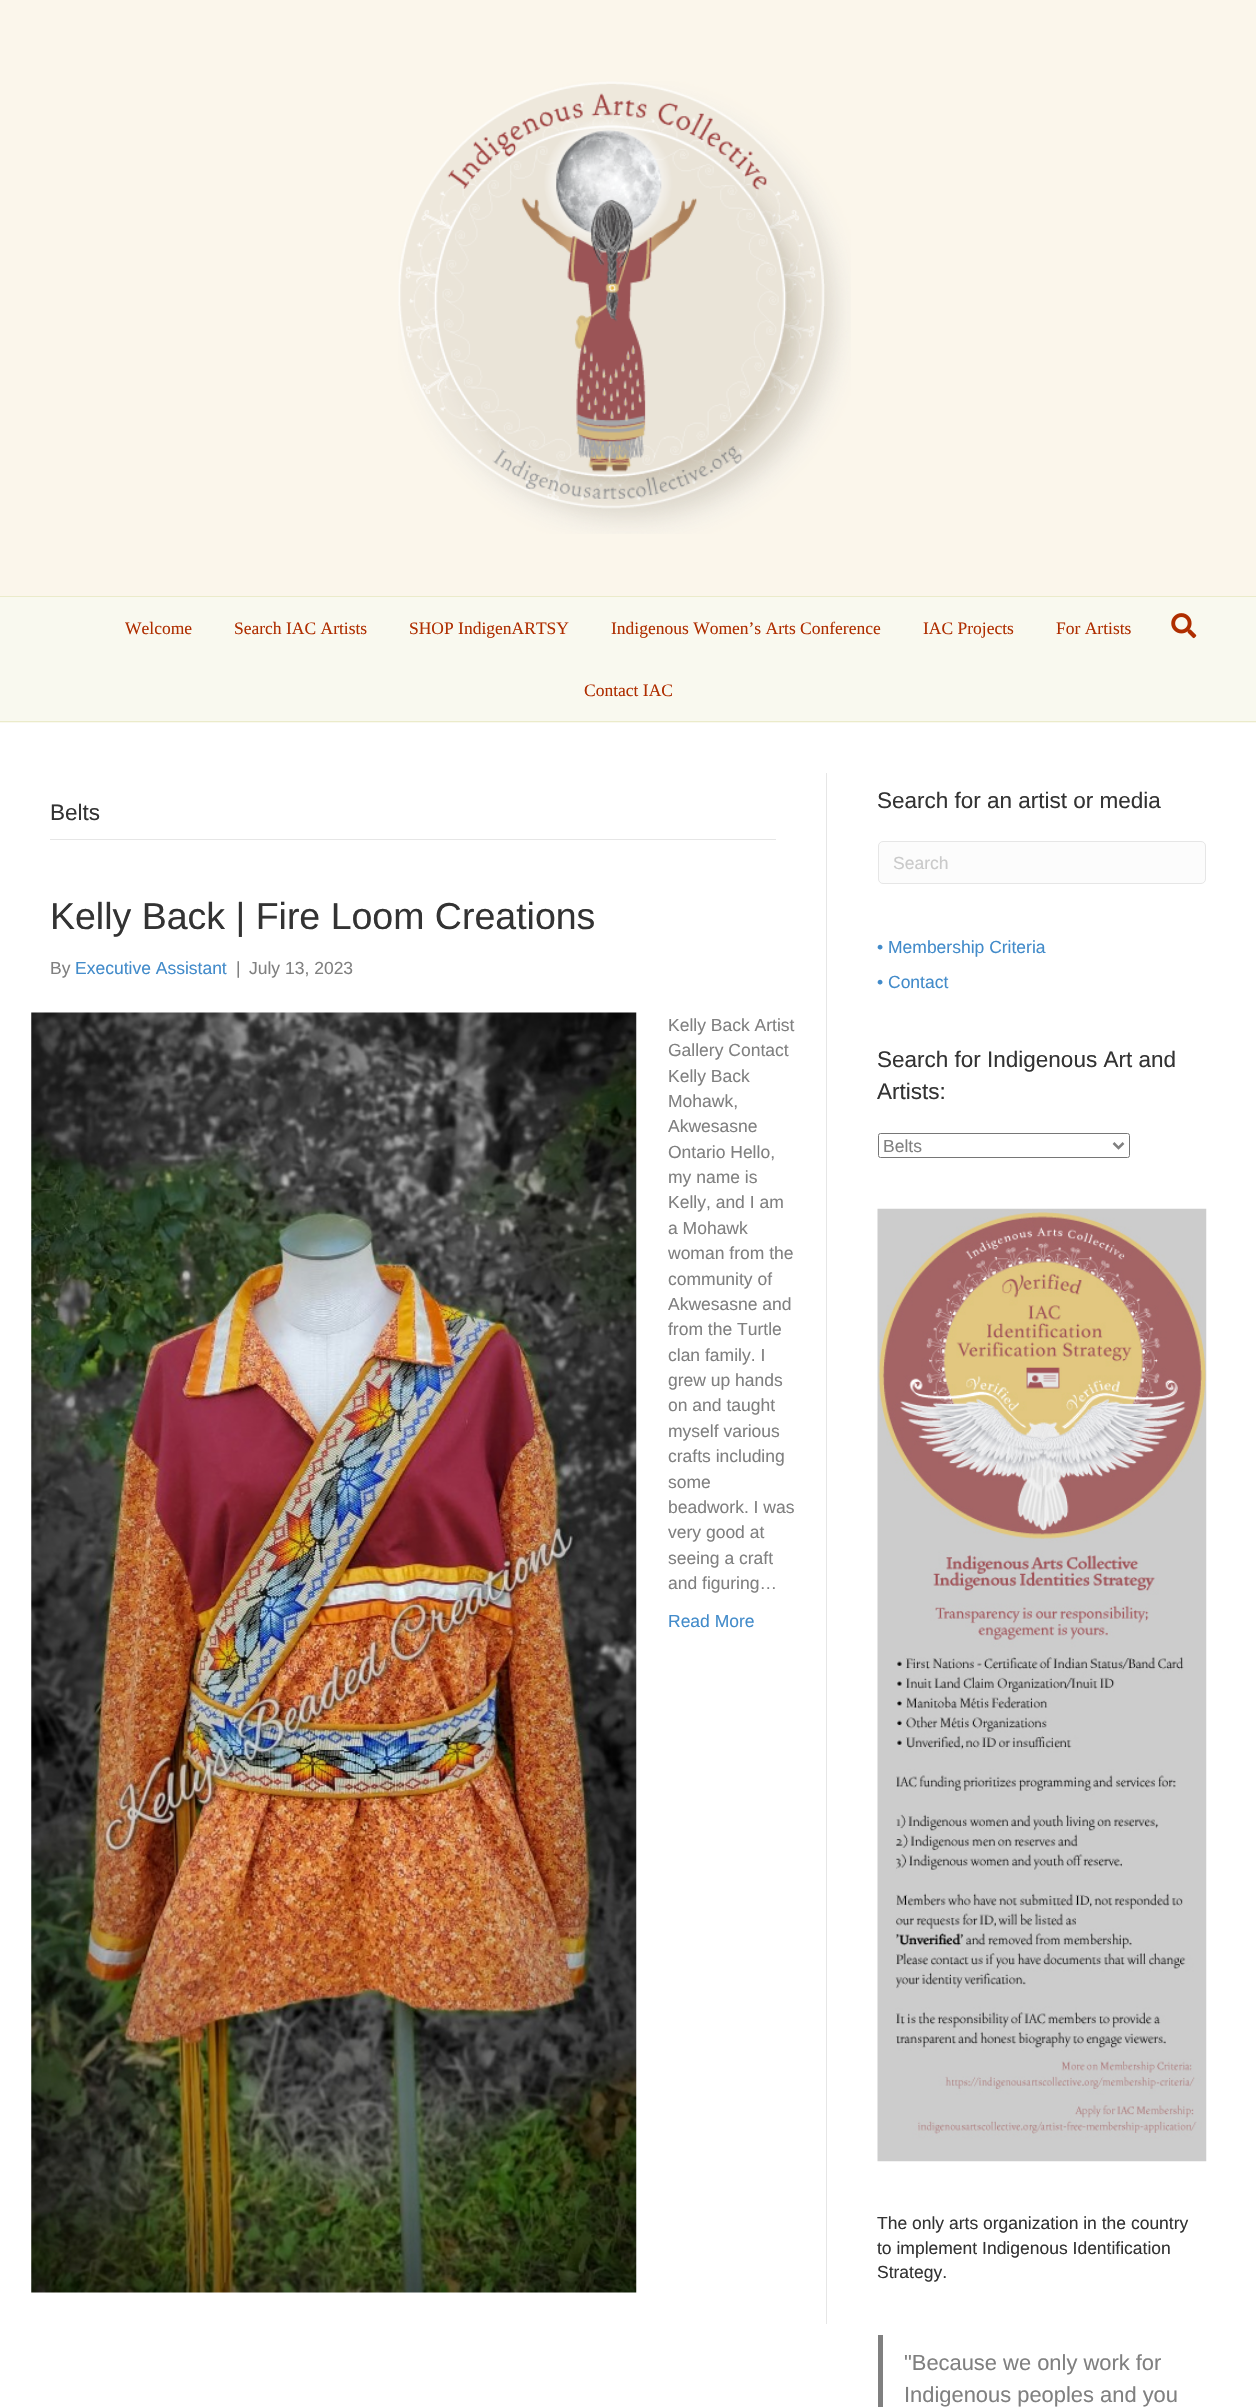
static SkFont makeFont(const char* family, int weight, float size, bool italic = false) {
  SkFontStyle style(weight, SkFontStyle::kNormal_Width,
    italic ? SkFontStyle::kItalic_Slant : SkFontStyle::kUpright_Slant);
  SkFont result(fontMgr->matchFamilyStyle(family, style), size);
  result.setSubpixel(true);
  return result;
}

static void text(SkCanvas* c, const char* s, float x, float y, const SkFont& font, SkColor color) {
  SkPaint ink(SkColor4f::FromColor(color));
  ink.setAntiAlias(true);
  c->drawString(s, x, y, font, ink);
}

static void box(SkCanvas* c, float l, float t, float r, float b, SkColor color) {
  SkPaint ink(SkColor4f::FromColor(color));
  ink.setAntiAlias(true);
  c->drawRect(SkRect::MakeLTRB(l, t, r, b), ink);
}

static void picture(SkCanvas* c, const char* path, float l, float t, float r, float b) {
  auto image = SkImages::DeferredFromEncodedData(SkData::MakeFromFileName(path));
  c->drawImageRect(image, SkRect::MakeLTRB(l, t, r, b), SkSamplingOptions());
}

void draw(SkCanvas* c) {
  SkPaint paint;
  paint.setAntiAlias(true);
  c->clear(0xffffffff);
  box(c, 0, 0, 1256, 596, 0xfffbf6eb);
  picture(c, "img_01.png", 398, 81, 851, 534);
  box(c, 0, 597, 1256, 723, 0xfff9f9ef);
  box(c, 0, 596, 1256, 597, 0xffebebca);
  box(c, 0, 721, 1256, 722, 0xffebebca);
  SkFont face1 = makeFont("Liberation Serif", 400, 17.5f);
  text(c, "Welcome", 125, 634, face1, 0xffaf2e00);
  text(c, "Search IAC Artists", 234, 634, face1, 0xffaf2e00);
  text(c, "SHOP IndigenARTSY", 409, 634, face1, 0xffaf2e00);
  text(c, "Indigenous Women’s Arts Conference", 611, 634, face1, 0xffaf2e00);
  text(c, "IAC Projects", 923, 634, face1, 0xffaf2e00);
  text(c, "For Artists", 1056, 634, face1, 0xffaf2e00);
  text(c, "Contact IAC", 584, 696, face1, 0xffaf2e00);
  picture(c, "img_02.png", 1171, 613, 1197, 639);
  box(c, 826, 773, 827, 2324, 0xffe6e6e6);
  box(c, 50, 839, 776, 840, 0xffe6e6e6);
  SkFont face2 = makeFont("Liberation Sans", 400, 22.5f);
  text(c, "Belts", 50, 820, face2, 0xff333333);
  SkFont face3 = makeFont("Liberation Sans", 400, 37.5f);
  text(c, "Kelly Back | Fire Loom Creations", 50, 929, face3, 0xff333333);
  SkFont face4 = makeFont("Liberation Sans", 400, 17.5f);
  text(c, "By", 50, 974, face4, 0xff808080);
  text(c, "Executive Assistant", 75, 974, face4, 0xff428bca);
  text(c, "|", 236, 974, face4, 0xff808080);
  text(c, "July 13, 2023", 249, 974, face4, 0xff808080);
  picture(c, "img_03.png", 31, 1012, 637, 2293);
  text(c, "Kelly Back Artist", 668, 1031, face4, 0xff808080);
  text(c, "Gallery Contact", 668, 1056, face4, 0xff808080);
  text(c, "Kelly Back", 668, 1082, face4, 0xff808080);
  text(c, "Mohawk,", 668, 1107, face4, 0xff808080);
  text(c, "Akwesasne", 668, 1132, face4, 0xff808080);
  text(c, "Ontario Hello,", 668, 1158, face4, 0xff808080);
  text(c, "my name is", 668, 1183, face4, 0xff808080);
  text(c, "Kelly, and I am", 668, 1208, face4, 0xff808080);
  text(c, "a Mohawk", 668, 1234, face4, 0xff808080);
  text(c, "woman from the", 668, 1259, face4, 0xff808080);
  text(c, "community of", 668, 1285, face4, 0xff808080);
  text(c, "Akwesasne and", 668, 1310, face4, 0xff808080);
  text(c, "from the Turtle", 668, 1335, face4, 0xff808080);
  text(c, "clan family. I", 668, 1361, face4, 0xff808080);
  text(c, "grew up hands", 668, 1386, face4, 0xff808080);
  text(c, "on and taught", 668, 1411, face4, 0xff808080);
  text(c, "myself various", 668, 1437, face4, 0xff808080);
  text(c, "crafts including", 668, 1462, face4, 0xff808080);
  text(c, "some", 668, 1488, face4, 0xff808080);
  text(c, "beadwork. I was", 668, 1513, face4, 0xff808080);
  text(c, "very good at", 668, 1538, face4, 0xff808080);
  text(c, "seeing a craft", 668, 1564, face4, 0xff808080);
  text(c, "and figuring…", 668, 1589, face4, 0xff808080);
  text(c, "Read More", 668, 1627, face4, 0xff428bca);
  text(c, "Search for an artist or media", 877, 808, face2, 0xff333333);
  paint.setColor(0xfffcfcfc);
  c->drawRoundRect(SkRect::MakeLTRB(878.5f, 841.5f, 1205.5f, 883.5f), 4.5f, 4.5f, paint);
  paint.setStyle(SkPaint::kStroke_Style);
  paint.setStrokeWidth(1);
  paint.setColor(0xffe6e6e6);
  c->drawRoundRect(SkRect::MakeLTRB(878.5f, 841.5f, 1205.5f, 883.5f), 4.5f, 4.5f, paint);
  text(c, "Search", 893, 869, face4, 0xffcacaca);
  text(c, "• Membership Criteria", 877, 953, face4, 0xff428bca);
  text(c, "• Contact", 877, 988, face4, 0xff428bca);
  text(c, "Search for Indigenous Art and", 877, 1067, face2, 0xff333333);
  text(c, "Artists:", 877, 1099, face2, 0xff333333);
  paint.setColor(0xff767676);
  c->drawRoundRect(SkRect::MakeLTRB(878.5f, 1133.5f, 1129.5f, 1157.5f), 2, 2, paint);
  paint.setStrokeWidth(2.5f);
  paint.setColor(0xff808080);
  c->drawPath(SkPathBuilder().moveTo(1113.5f, 1143).lineTo(1118.5f, 1148).lineTo(1123.5f, 1143).detach(), paint);
  text(c, "Belts", 883, 1152, face4, 0xff808080);
  picture(c, "img_04.png", 877, 1208, 1207, 2162);
  text(c, "The only arts organization in the country", 877, 2229, face4, 0xff333333);
  text(c, "to implement Indigenous Identification", 877, 2254, face4, 0xff333333);
  text(c, "Strategy.", 877, 2278, face4, 0xff333333);
  box(c, 878, 2335, 883, 2407, 0xff808080);
  SkFont face5 = makeFont("Liberation Sans", 400, 21.9f);
  text(c, "\"Because we only work for", 904, 2370, face5, 0xff808080);
  text(c, "Indigenous peoples and you", 904, 2402, face5, 0xff808080);
}
